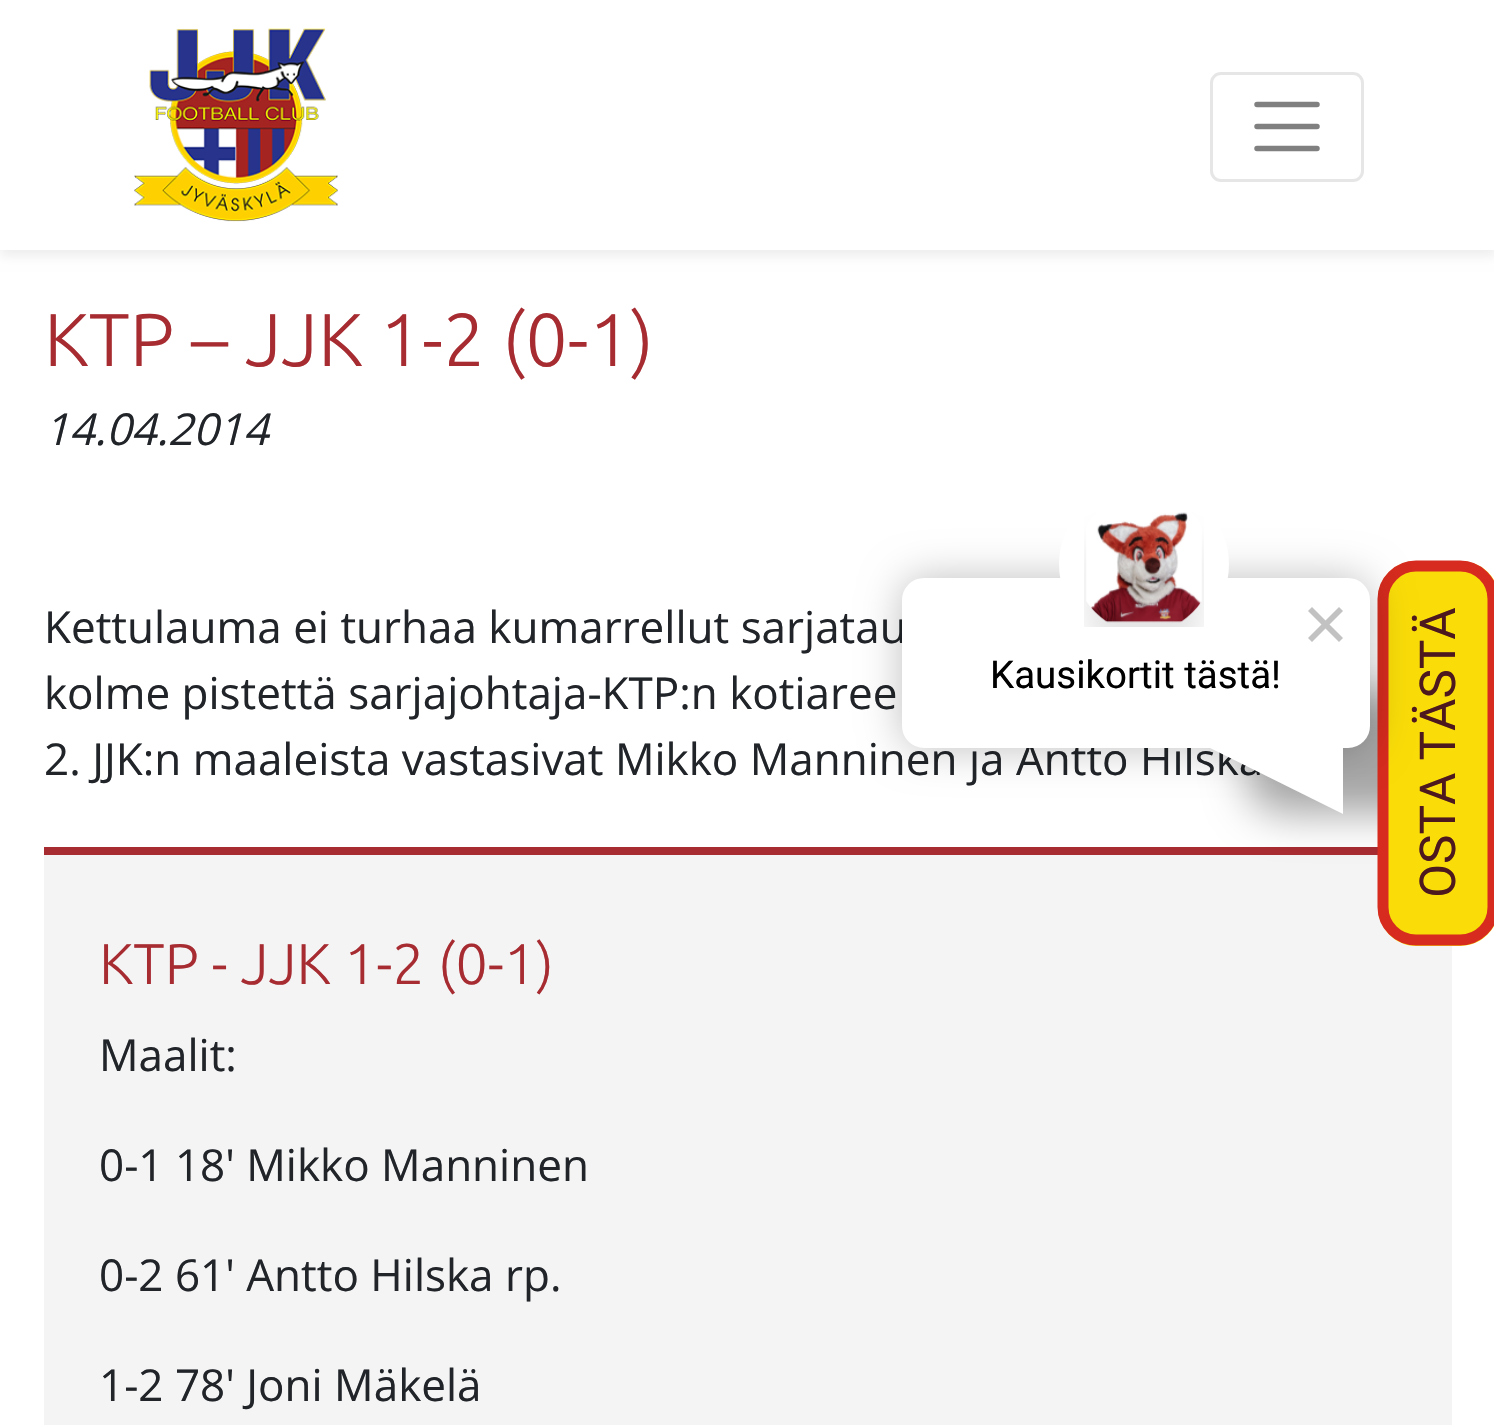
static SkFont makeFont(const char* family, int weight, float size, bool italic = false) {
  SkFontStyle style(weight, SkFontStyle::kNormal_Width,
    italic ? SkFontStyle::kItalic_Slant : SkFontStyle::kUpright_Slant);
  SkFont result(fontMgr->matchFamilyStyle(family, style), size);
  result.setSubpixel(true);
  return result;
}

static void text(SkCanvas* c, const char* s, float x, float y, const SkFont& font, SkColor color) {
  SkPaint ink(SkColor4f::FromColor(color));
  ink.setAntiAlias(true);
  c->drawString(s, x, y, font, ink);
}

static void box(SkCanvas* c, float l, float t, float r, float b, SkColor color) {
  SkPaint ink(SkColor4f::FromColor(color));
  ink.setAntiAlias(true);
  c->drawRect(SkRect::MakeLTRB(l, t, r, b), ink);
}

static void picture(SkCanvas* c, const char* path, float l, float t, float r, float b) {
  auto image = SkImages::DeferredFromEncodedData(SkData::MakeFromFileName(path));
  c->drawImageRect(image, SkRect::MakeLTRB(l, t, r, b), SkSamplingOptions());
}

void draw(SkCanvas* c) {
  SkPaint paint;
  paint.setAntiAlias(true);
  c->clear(0xffffffff);
  paint.setColor(0x12000000);
  paint.setMaskFilter(SkMaskFilter::MakeBlur(kNormal_SkBlurStyle, 5.5f));
  c->drawRect(SkRect::MakeLTRB(0, 6, 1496, 256), paint);
  paint.setMaskFilter(nullptr);
  box(c, 0, 0, 1494, 250, 0xffffffff);
  picture(c, "img_01.png", 134, 28, 338, 222);
  paint.setStyle(SkPaint::kStroke_Style);
  paint.setStrokeWidth(3);
  paint.setColor(0xffe6e6e6);
  c->drawRoundRect(SkRect::MakeLTRB(1211.5f, 73.5f, 1362.5f, 180.5f), 9.5f, 9.5f, paint);
  paint.setStrokeWidth(5.5f);
  paint.setStrokeCap(SkPaint::kRound_Cap);
  paint.setColor(0xff808080);
  c->drawPath(SkPathBuilder().moveTo(1257, 104.5f).lineTo(1317, 104.5f).moveTo(1257, 126.5f).lineTo(1317, 126.5f).moveTo(1257, 148.5f).lineTo(1317, 148.5f).detach(), paint);
  SkFont face1 = makeFont("Ubuntu", 300, 74.75f);
  text(c, "KTP – JJK 1-2 (0-1)", 44, 366, face1, 0xffa72c32);
  SkFont face2 = makeFont("Open Sans", 400, 44, true);
  text(c, "14.04.2014", 44, 445, face2, 0xff212529);
  SkFont face3 = makeFont("Open Sans", 400, 44);
  text(c, "Kettulauma ei turhaa kumarrellut sarjatau", 44, 643, face3, 0xff212529);
  text(c, "kolme pistettä sarjajohtaja-KTP:n kotiaree", 44, 709, face3, 0xff212529);
  text(c, "2. JJK:n maaleista vastasivat Mikko Manninen ja Antto Hilska", 44, 775, face3, 0xff212529);
  box(c, 44, 855, 1452, 1425, 0xfff4f4f4);
  box(c, 44, 847, 1378, 855, 0xffa72c32);
  SkFont face4 = makeFont("Ubuntu", 300, 57.25f);
  text(c, "KTP - JJK 1-2 (0-1)", 99, 984, face4, 0xffa72c32);
  text(c, "Maalit:", 99, 1071, face3, 0xff212529);
  text(c, "0-1 18' Mikko Manninen", 99, 1181, face3, 0xff212529);
  text(c, "0-2 61' Antto Hilska rp.", 99, 1291, face3, 0xff212529);
  text(c, "1-2 78' Joni Mäkelä", 99, 1401, face3, 0xff212529);
  paint.setStyle(SkPaint::kFill_Style);
  paint.setColor(0x59000000);
  paint.setMaskFilter(SkMaskFilter::MakeBlur(kNormal_SkBlurStyle, 20.5f));
  c->drawRoundRect(SkRect::MakeLTRB(1246, 693, 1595, 814), 39, 39, paint);
  paint.setMaskFilter(nullptr);
  paint.setColor(0xfffadc08);
  c->drawPath(SkPathBuilder().moveTo(1378, 907).lineTo(1378, 599).cubicTo(1378, 578, 1395, 561, 1416, 561).lineTo(1460, 561).cubicTo(1482, 561, 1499, 578, 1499, 599).lineTo(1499, 907).cubicTo(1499, 928, 1482, 946, 1460, 946).lineTo(1416, 946).cubicTo(1395, 946, 1378, 928, 1378, 907).close().detach(), paint);
  paint.setStyle(SkPaint::kStroke_Style);
  paint.setStrokeWidth(11);
  paint.setStrokeCap(SkPaint::kButt_Cap);
  paint.setColor(0xffd62b1e);
  c->drawPath(SkPathBuilder().moveTo(1383, 907).lineTo(1383, 599).cubicTo(1383, 581, 1398, 566, 1416, 566).lineTo(1460, 566).cubicTo(1478.5f, 566, 1493, 581, 1493, 599).lineTo(1493, 907).cubicTo(1493, 925.5f, 1478.5f, 940, 1460, 940).lineTo(1416, 940).cubicTo(1398, 940, 1383, 925.5f, 1383, 907).close().detach(), paint);
  paint.setStyle(SkPaint::kFill_Style);
  paint.setColor(0x40000000);
  paint.setMaskFilter(SkMaskFilter::MakeBlur(kNormal_SkBlurStyle, 20.5f));
  c->drawRoundRect(SkRect::MakeLTRB(902, 578, 1370, 748), 22, 22, paint);
  paint.setMaskFilter(nullptr);
  paint.setColor(0xffffffff);
  c->drawRoundRect(SkRect::MakeLTRB(903.5f, 579.5f, 1368.5f, 746.5f), 20.5f, 20.5f, paint);
  paint.setStyle(SkPaint::kStroke_Style);
  paint.setStrokeWidth(3);
  c->drawRoundRect(SkRect::MakeLTRB(903.5f, 579.5f, 1368.5f, 746.5f), 20.5f, 20.5f, paint);
  paint.setStyle(SkPaint::kFill_Style);
  c->drawCircle(1144, 564, 76.5f, paint);
  paint.setStyle(SkPaint::kStroke_Style);
  paint.setStrokeWidth(17);
  c->drawCircle(1144, 564, 76.5f, paint);
  picture(c, "img_02.png", 1084, 512, 1204, 627);
  paint.setStyle(SkPaint::kFill_Style);
  paint.setColor(0xffc2c2c2);
  c->drawPath(SkPathBuilder().moveTo(1339, 607).lineTo(1343, 611).lineTo(1312, 642).lineTo(1308, 638).close().detach(), paint);
  c->drawPath(SkPathBuilder().moveTo(1308, 611).lineTo(1312, 607).lineTo(1343, 638).lineTo(1339, 642).close().detach(), paint);
  SkFont face5 = makeFont("Roboto", 400, 38.5f);
  text(c, "Kausikortit tästä!", 990, 688, face5, 0xff000000);
  paint.setColor(0xffffffff);
  c->drawPath(SkPathBuilder().moveTo(1206, 745).lineTo(1206, 746).lineTo(1343, 814).lineTo(1343, 677).close().detach(), paint);
  SkFont face6 = makeFont("Roboto", 400, 49.5f);
  c->save();
  c->rotate(-90, 1455, 898);
  text(c, "OSTA TÄSTÄ", 1455, 898, face6, 0xff4d191e);
  c->restore();
}
